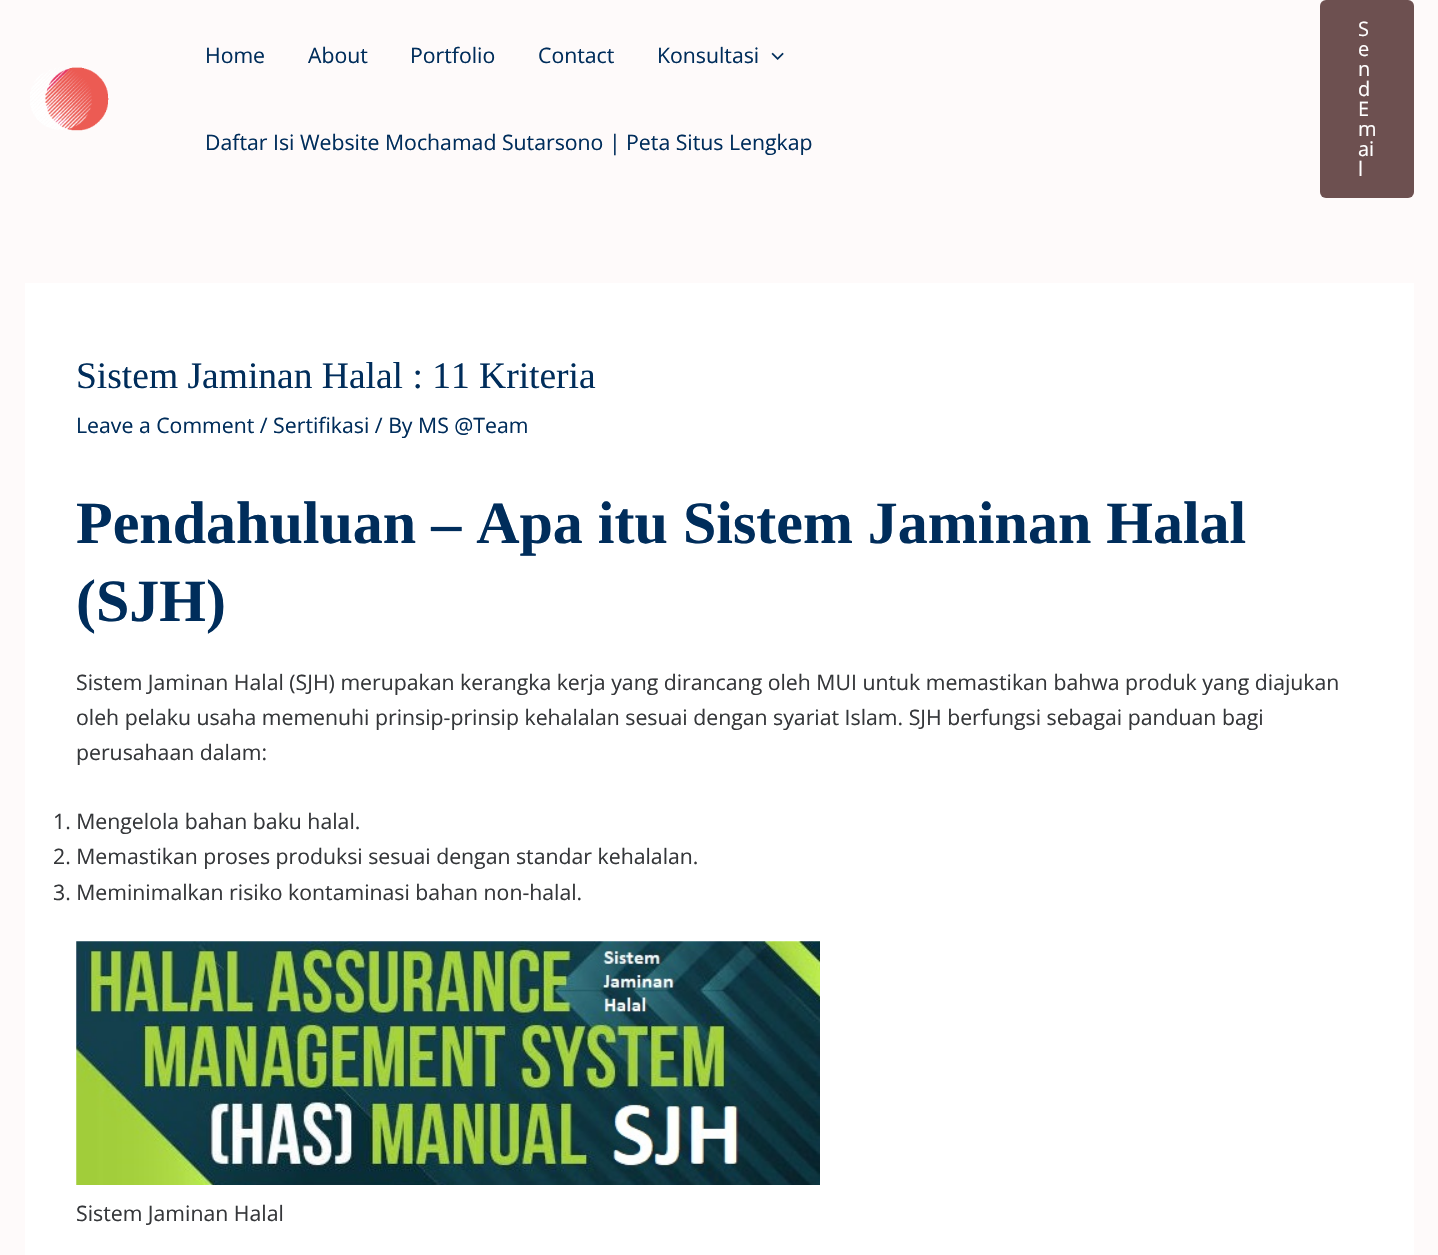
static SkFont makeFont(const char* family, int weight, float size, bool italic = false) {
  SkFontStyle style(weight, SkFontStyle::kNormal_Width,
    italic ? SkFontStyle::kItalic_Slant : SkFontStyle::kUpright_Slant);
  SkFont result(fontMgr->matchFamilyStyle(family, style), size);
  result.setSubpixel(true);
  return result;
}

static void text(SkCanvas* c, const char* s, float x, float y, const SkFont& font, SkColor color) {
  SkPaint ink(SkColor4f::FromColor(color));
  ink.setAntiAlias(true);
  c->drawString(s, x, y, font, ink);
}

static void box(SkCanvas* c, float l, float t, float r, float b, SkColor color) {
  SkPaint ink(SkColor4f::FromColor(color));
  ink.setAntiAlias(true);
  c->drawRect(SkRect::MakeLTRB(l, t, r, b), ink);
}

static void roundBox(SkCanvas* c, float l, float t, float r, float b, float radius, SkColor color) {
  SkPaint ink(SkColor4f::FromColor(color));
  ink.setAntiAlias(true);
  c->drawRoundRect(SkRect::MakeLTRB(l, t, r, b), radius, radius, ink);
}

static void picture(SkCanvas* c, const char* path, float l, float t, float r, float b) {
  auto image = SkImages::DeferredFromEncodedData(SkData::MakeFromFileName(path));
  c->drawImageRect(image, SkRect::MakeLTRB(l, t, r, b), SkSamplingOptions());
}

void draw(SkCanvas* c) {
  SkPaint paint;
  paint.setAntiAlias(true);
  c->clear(0xfffefafa);
  picture(c, "img_01.png", 30, 67, 109, 131);
  SkFont face1 = makeFont("Open Sans", 400, 21.25f);
  text(c, "Home", 205, 63, face1, 0xff002d5b);
  text(c, "About", 308, 63, face1, 0xff002d5b);
  text(c, "Portfolio", 410, 63, face1, 0xff002d5b);
  text(c, "Contact", 538, 63, face1, 0xff002d5b);
  text(c, "Konsultasi", 657, 63, face1, 0xff002d5b);
  picture(c, "img_02.png", 771, 52, 784, 60);
  text(c, "Daftar Isi Website Mochamad Sutarsono | Peta Situs Lengkap", 205, 150, face1, 0xff002d5b);
  roundBox(c, 1320, 0, 1414, 198, 6, 0xff6d5050);
  SkFont face2 = makeFont("Open Sans", 400, 20);
  text(c, "S", 1358, 36, face2, 0xffffffff);
  text(c, "e", 1358, 56, face2, 0xffffffff);
  text(c, "n", 1358, 76, face2, 0xffffffff);
  text(c, "d", 1358, 96, face2, 0xffffffff);
  text(c, "E", 1358, 116, face2, 0xffffffff);
  text(c, "m", 1358, 136, face2, 0xffffffff);
  text(c, "ai", 1358, 156, face2, 0xffffffff);
  text(c, "l", 1358, 176, face2, 0xffffffff);
  box(c, 25, 283, 1414, 1255, 0xffffffff);
  SkFont face3 = makeFont("Liberation Serif", 400, 37.5f);
  text(c, "Sistem Jaminan Halal : 11 Kriteria", 76, 388, face3, 0xff002d5b);
  text(c, "Leave a Comment / Sertifikasi / By MS @Team", 76, 433, face1, 0xff002d5b);
  SkFont face4 = makeFont("Liberation Serif", 700, 60);
  text(c, "Pendahuluan – Apa itu Sistem Jaminan Halal", 76, 543, face4, 0xff002d5b);
  text(c, "(SJH)", 76, 621, face4, 0xff002d5b);
  text(c, "Sistem Jaminan Halal (SJH) merupakan kerangka kerja yang dirancang oleh MUI untuk memastikan bahwa produk yang diajukan", 76, 690, face1, 0xff35373a);
  text(c, "oleh pelaku usaha memenuhi prinsip-prinsip kehalalan sesuai dengan syariat Islam. SJH berfungsi sebagai panduan bagi", 76, 725, face1, 0xff35373a);
  text(c, "perusahaan dalam:", 76, 760, face1, 0xff35373a);
  text(c, "1. Mengelola bahan baku halal.", 53, 829, face1, 0xff35373a);
  text(c, "2. Memastikan proses produksi sesuai dengan standar kehalalan.", 53, 864, face1, 0xff35373a);
  text(c, "3. Meminimalkan risiko kontaminasi bahan non-halal.", 53, 900, face1, 0xff35373a);
  picture(c, "img_03.png", 76, 941, 820, 1185);
  text(c, "Sistem Jaminan Halal", 76, 1221, face1, 0xff35373a);
}
